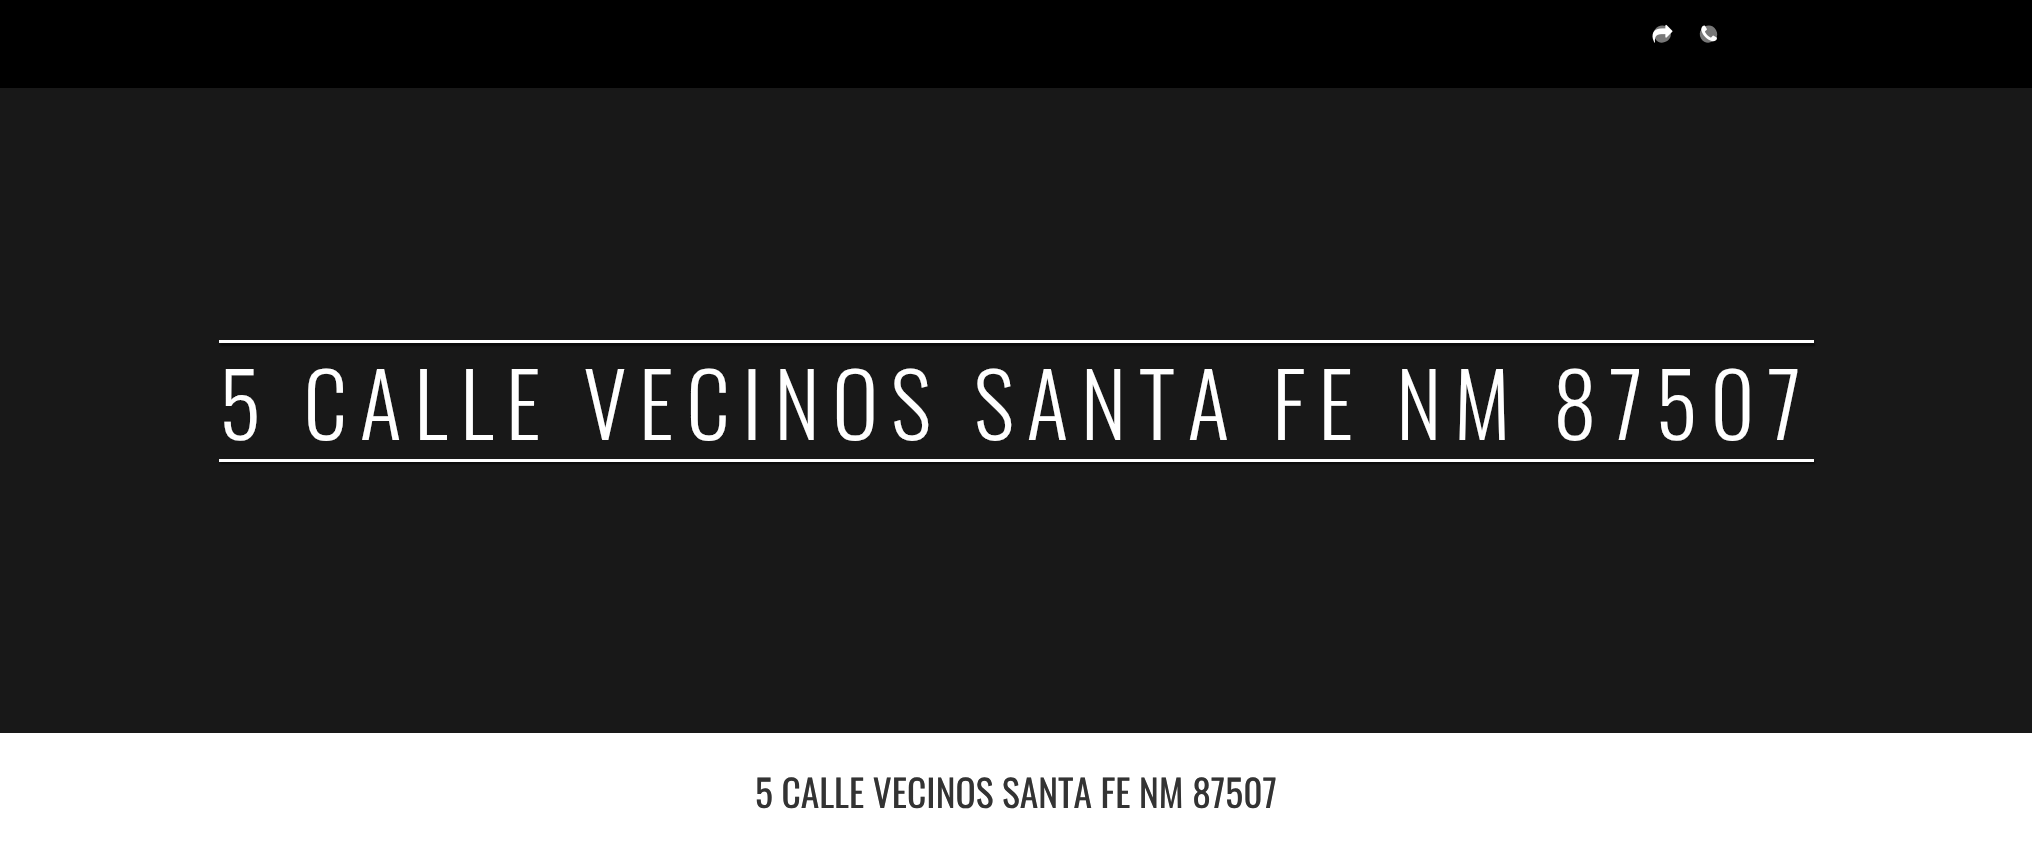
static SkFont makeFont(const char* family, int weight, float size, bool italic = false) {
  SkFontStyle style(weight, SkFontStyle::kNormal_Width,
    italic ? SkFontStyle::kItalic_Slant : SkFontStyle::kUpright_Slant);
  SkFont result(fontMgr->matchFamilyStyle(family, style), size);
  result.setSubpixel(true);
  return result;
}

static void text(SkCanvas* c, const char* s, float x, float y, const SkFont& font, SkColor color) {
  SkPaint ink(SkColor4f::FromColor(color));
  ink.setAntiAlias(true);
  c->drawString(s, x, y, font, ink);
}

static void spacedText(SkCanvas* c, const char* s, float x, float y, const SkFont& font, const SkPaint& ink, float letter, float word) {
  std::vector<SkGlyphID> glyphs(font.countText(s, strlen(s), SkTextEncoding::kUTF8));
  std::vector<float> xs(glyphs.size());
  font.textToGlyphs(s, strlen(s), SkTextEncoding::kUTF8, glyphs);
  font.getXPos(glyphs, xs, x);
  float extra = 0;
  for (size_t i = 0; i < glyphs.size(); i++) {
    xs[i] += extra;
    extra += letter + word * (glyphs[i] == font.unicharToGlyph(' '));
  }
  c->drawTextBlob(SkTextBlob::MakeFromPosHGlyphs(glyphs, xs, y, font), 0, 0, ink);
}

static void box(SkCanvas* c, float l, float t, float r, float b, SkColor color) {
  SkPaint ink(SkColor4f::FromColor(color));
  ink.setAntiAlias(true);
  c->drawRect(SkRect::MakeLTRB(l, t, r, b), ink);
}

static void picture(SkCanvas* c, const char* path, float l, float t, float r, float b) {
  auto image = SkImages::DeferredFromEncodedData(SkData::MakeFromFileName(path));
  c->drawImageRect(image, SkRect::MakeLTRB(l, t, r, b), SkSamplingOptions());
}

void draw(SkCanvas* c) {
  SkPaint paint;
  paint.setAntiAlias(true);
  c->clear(0xffffffff);
  box(c, 0, 0, 2032, 88, 0xff000000);
  paint.setColor(0xff777777);
  c->drawPath(SkPathBuilder().moveTo(1669.5f, 30).cubicTo(1675.5f, 39.5f, 1660.5f, 48, 1655, 38.5f).cubicTo(1649, 28.5f, 1664, 20, 1669.5f, 30).close().detach(), paint);
  picture(c, "img_01.png", 1652, 24, 1673, 43);
  c->drawPath(SkPathBuilder().moveTo(1716, 30).cubicTo(1721.5f, 39.5f, 1707, 48, 1701, 38.5f).cubicTo(1695.5f, 28.5f, 1710.5f, 20, 1716, 30).close().detach(), paint);
  picture(c, "img_02.png", 1701, 25, 1717, 42);
  box(c, 0, 88, 2032, 733, 0xff181818);
  paint.setColor(0x99000000);
  paint.setMaskFilter(SkMaskFilter::MakeBlur(kNormal_SkBlurStyle, 1));
  c->drawRect(SkRect::MakeLTRB(220, 343, 1815, 346), paint);
  paint.setMaskFilter(nullptr);
  box(c, 219, 340, 1814, 343, 0xffffffff);
  SkFont face1 = makeFont("Oswald", 300, 87.5f);
  paint.setColor(0xffffffff);
  spacedText(c, "5 CALLE VECINOS SANTA FE NM 87507", 219, 440, face1, paint, 12.5f, 0);
  paint.setColor(0x99000000);
  paint.setMaskFilter(SkMaskFilter::MakeBlur(kNormal_SkBlurStyle, 1));
  c->drawRect(SkRect::MakeLTRB(220, 461, 1815, 464), paint);
  paint.setMaskFilter(nullptr);
  box(c, 219, 459, 1814, 462, 0xffffffff);
  SkFont face2 = makeFont("Oswald", 400, 37.5f);
  text(c, "5 CALLE VECINOS SANTA FE NM 87507", 755, 808, face2, 0xff333333);
}
